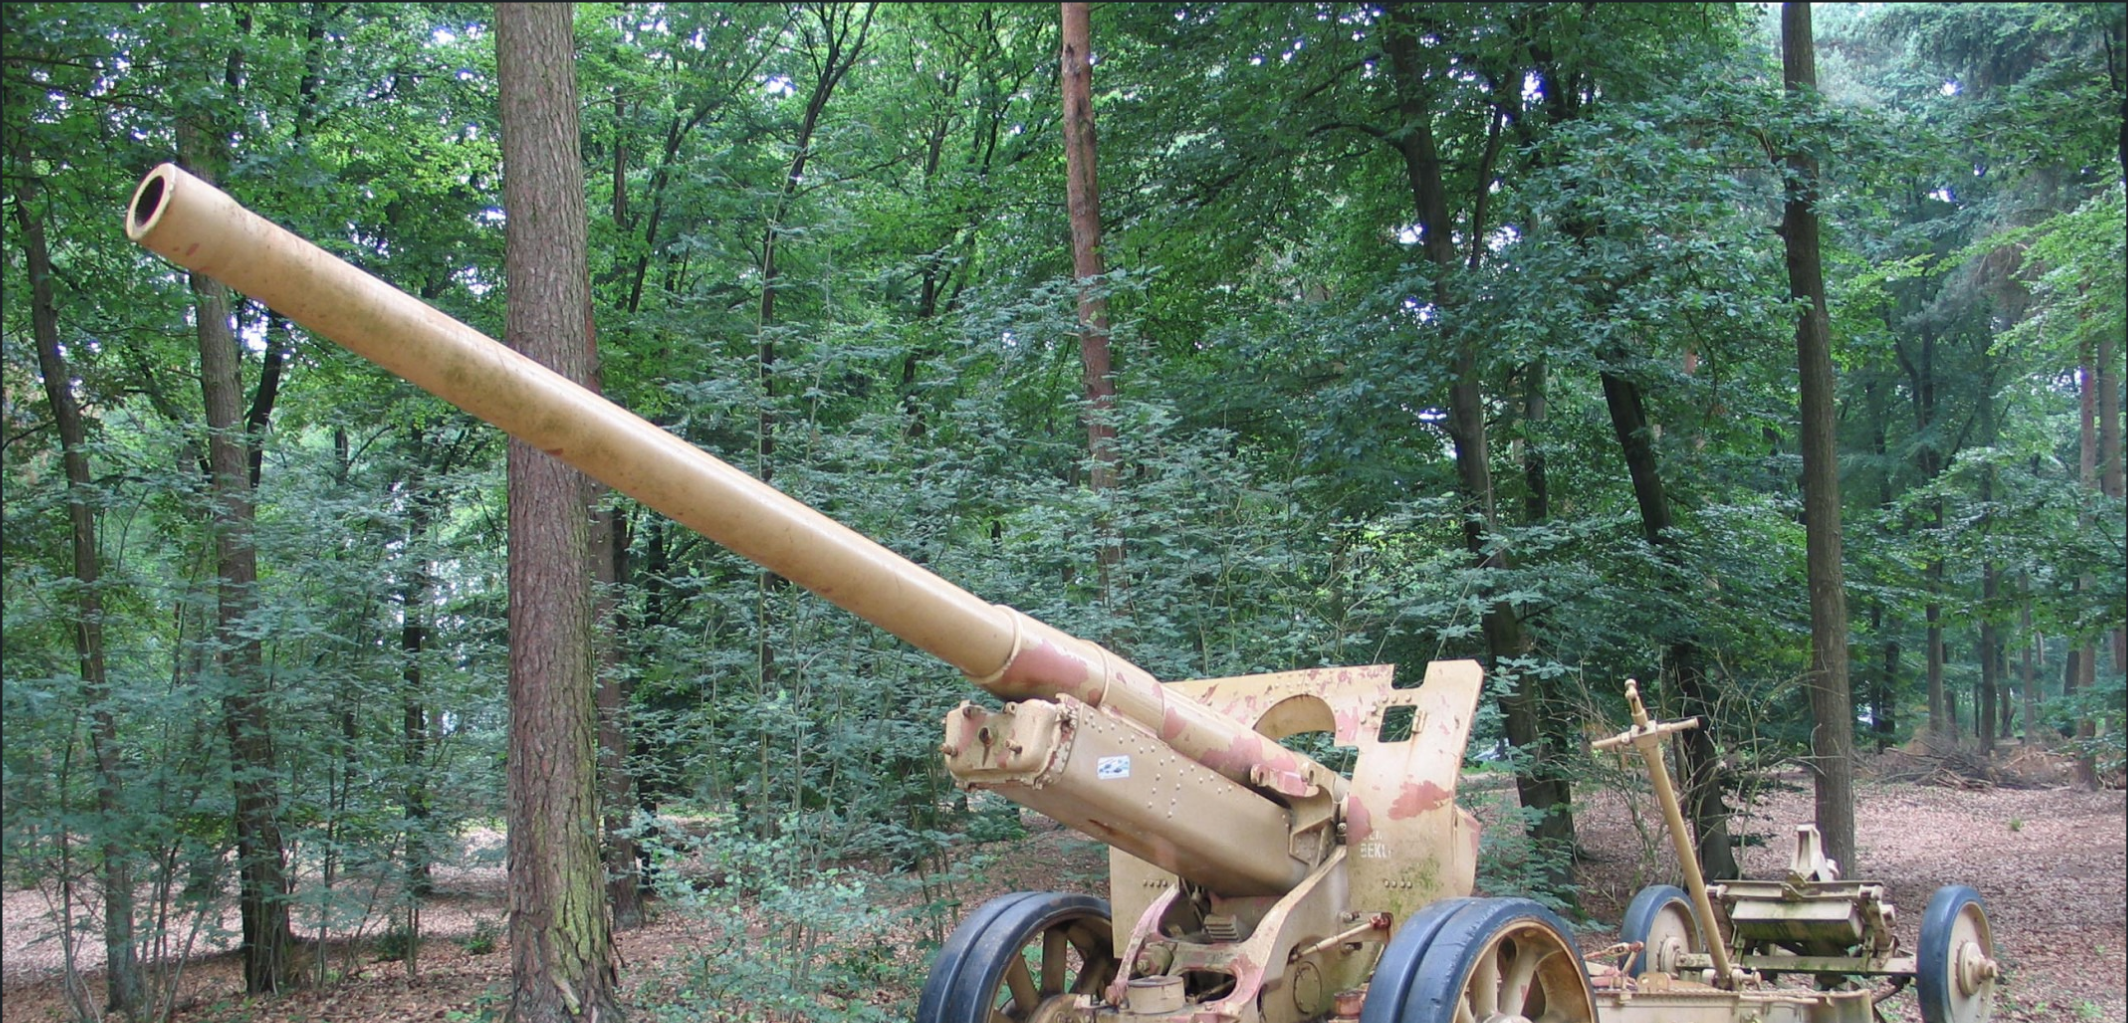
static void picture(SkCanvas* c, const char* path, float l, float t, float r, float b) {
  auto image = SkImages::DeferredFromEncodedData(SkData::MakeFromFileName(path));
  c->drawImageRect(image, SkRect::MakeLTRB(l, t, r, b), SkSamplingOptions());
}

void draw(SkCanvas* c) {
  SkPaint paint;
  paint.setAntiAlias(true);
  c->clear(0xff1d2327);
  picture(c, "img_01.png", 2, 2, 2127, 1023);
}
